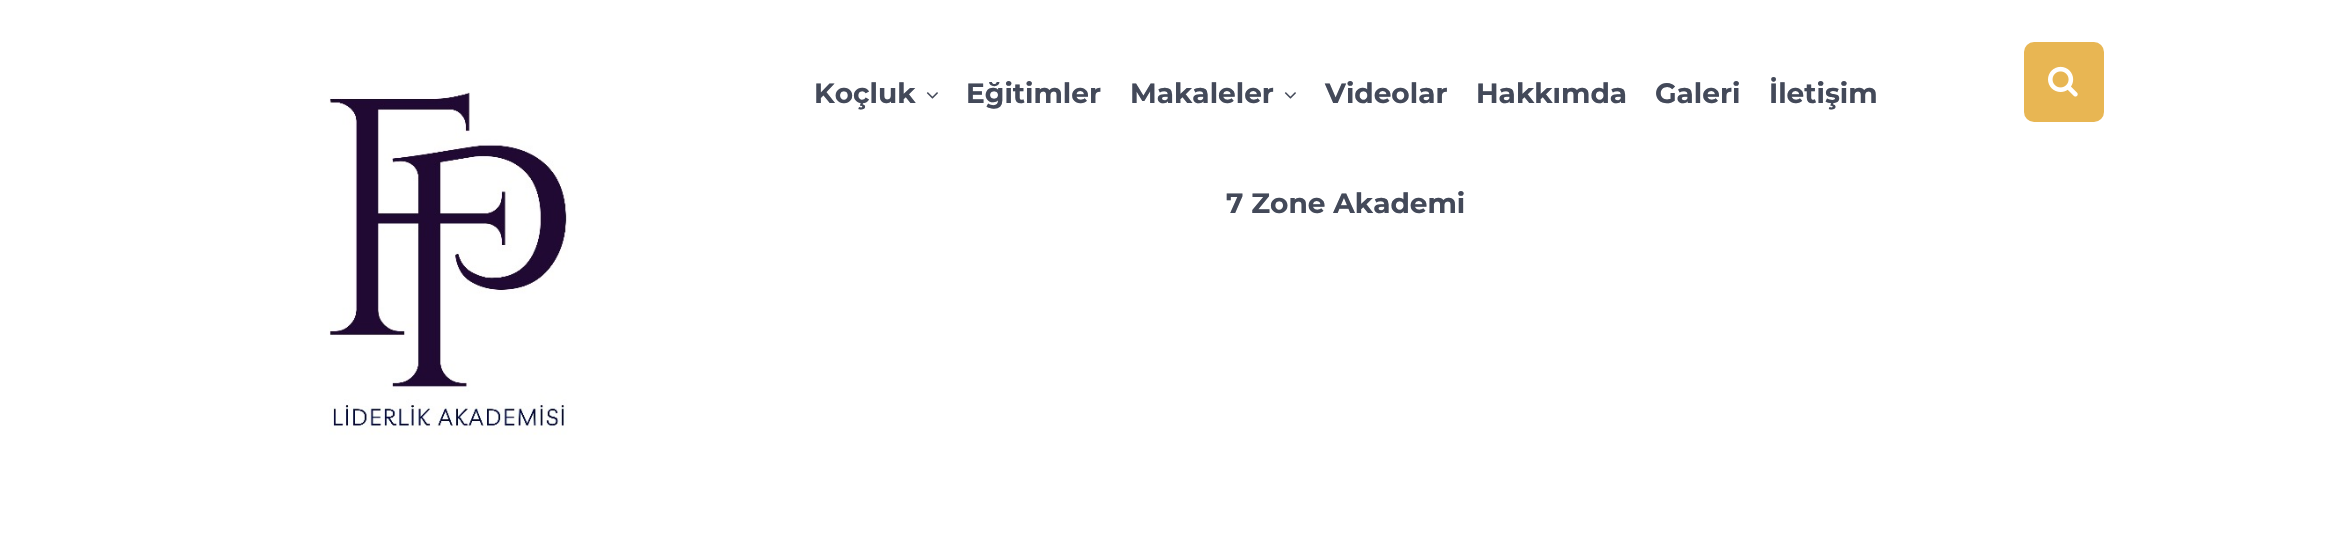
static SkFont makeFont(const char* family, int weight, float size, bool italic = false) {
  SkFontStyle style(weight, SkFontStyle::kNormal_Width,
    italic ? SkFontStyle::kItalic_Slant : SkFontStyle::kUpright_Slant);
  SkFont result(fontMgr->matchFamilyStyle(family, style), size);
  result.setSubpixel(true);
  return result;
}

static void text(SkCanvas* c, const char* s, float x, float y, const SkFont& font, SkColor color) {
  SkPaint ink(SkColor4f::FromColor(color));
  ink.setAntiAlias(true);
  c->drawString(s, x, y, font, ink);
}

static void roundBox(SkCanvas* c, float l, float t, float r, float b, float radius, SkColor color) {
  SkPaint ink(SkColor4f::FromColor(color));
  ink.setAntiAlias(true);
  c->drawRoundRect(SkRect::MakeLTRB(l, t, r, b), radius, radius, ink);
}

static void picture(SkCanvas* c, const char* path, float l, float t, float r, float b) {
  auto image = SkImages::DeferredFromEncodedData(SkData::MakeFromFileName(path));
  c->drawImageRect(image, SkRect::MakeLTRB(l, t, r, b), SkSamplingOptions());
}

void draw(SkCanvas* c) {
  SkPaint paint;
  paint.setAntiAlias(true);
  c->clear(0xffffffff);
  picture(c, "img_01.png", 329, 90, 568, 435);
  SkFont face1 = makeFont("Montserrat", 700, 28);
  text(c, "Koçluk", 814, 103, face1, 0xff434959);
  picture(c, "img_02.png", 926, 92, 938, 99);
  text(c, "Eğitimler", 966, 103, face1, 0xff434959);
  text(c, "Makaleler", 1130, 103, face1, 0xff434959);
  picture(c, "img_02.png", 1284, 92, 1296, 99);
  text(c, "Videolar", 1325, 103, face1, 0xff434959);
  text(c, "Hakkımda", 1476, 103, face1, 0xff434959);
  text(c, "Galeri", 1655, 103, face1, 0xff434959);
  text(c, "İletişim", 1769, 103, face1, 0xff434959);
  text(c, "7 Zone Akademi", 1226, 213, face1, 0xff434959);
  roundBox(c, 2024, 42, 2104, 122, 10, 0xffe8b653);
  picture(c, "img_03.png", 2048, 66, 2078, 97);
}
